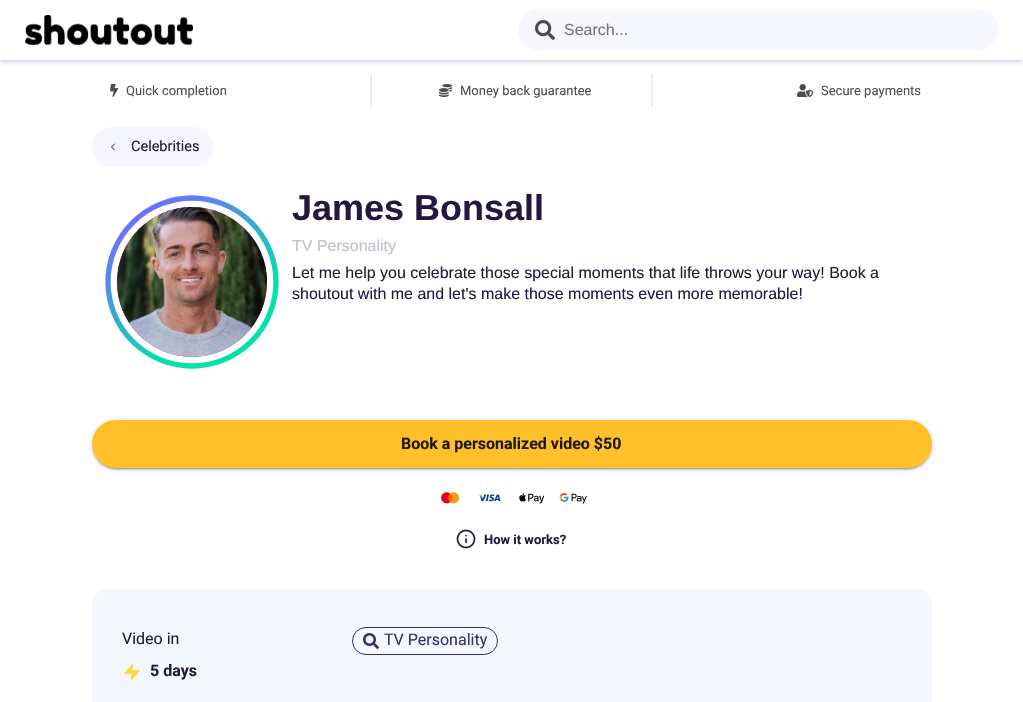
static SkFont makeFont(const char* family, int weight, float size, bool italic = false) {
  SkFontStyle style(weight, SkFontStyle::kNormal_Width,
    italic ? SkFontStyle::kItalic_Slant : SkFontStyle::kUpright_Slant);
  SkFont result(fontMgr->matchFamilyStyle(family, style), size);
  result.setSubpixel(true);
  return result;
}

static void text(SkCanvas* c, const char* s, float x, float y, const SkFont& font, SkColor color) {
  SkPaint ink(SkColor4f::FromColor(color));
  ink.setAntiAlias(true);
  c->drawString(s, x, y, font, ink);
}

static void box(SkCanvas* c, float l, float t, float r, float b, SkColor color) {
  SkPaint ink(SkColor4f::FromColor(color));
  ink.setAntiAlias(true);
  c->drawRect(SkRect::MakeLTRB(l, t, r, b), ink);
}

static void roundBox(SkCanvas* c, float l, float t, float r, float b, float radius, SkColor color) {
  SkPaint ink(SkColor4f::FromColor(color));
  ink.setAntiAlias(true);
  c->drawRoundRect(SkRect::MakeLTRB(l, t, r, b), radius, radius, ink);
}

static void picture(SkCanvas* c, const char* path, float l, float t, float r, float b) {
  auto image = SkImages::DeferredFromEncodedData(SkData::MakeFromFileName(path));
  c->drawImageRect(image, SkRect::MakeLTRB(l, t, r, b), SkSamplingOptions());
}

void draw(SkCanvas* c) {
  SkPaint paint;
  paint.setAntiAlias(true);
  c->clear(0xffffffff);
  c->save();
  c->clipRect(SkRect::MakeLTRB(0, 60, 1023, 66));
  paint.setColor(0xffbfc0d6);
  paint.setMaskFilter(SkMaskFilter::MakeBlur(kNormal_SkBlurStyle, 2.5f));
  c->drawRect(SkRect::MakeLTRB(0, 1, 1023, 61), paint);
  paint.setMaskFilter(nullptr);
  c->restore();
  picture(c, "img_01.png", 25, 15, 193, 45);
  roundBox(c, 518, 10, 998, 50, 20, 0xfff5f6ff);
  picture(c, "img_02.png", 535, 20, 555, 40);
  SkFont face1 = makeFont("Liberation Sans", 400, 16);
  text(c, "Search...", 564, 35, face1, 0xff757575);
  picture(c, "img_03.png", 110, 84, 119, 97);
  SkFont face2 = makeFont("Roboto", 400, 13);
  text(c, "Quick completion", 126, 95, face2, 0xff4d4d4d);
  box(c, 370, 74, 372, 107, 0xffe9edf5);
  picture(c, "img_04.png", 439, 84, 452, 97);
  text(c, "Money back guarantee", 460, 95, face2, 0xff4d4d4d);
  box(c, 651, 74, 653, 107, 0xffe9edf5);
  picture(c, "img_05.png", 797, 84, 814, 97);
  text(c, "Secure payments", 821, 95, face2, 0xff4d4d4d);
  roundBox(c, 92, 127, 213, 167, 20, 0xfff5f6ff);
  paint.setStyle(SkPaint::kStroke_Style);
  paint.setStrokeWidth(1);
  paint.setStrokeCap(SkPaint::kRound_Cap);
  paint.setStrokeJoin(SkPaint::kRound_Join);
  paint.setColor(0xff251840);
  c->drawPath(SkPathBuilder().moveTo(114.5f, 150).lineTo(111.5f, 147).lineTo(114.5f, 144).detach(), paint);
  SkFont face3 = makeFont("Roboto", 400, 14.5f);
  text(c, "Celebrities", 131, 151, face3, 0xff251840);
  paint.setStrokeWidth(5.3f);
  paint.setStrokeCap(SkPaint::kButt_Cap);
  paint.setStrokeJoin(SkPaint::kMiter_Join);
  {
    const SkColor colors[] = {0xff706eff, 0xff02e1ab};
    const float stops[] = {0.18f, 1};
    const SkPoint ends[] = {{108, 198}, {204, 335}};
    paint.setShader(SkGradientShader::MakeLinear(ends, colors, stops, 2, SkTileMode::kClamp));
    paint.setAlpha(255);
  }
  c->drawCircle(192, 282, 84, paint);
  paint.setStyle(SkPaint::kFill_Style);
  paint.setShader(nullptr);
  paint.setColor(0xffff037c);
  c->drawCircle(192, 282, 75, paint);
  picture(c, "img_06.png", 117, 207, 267, 357);
  SkFont face4 = makeFont("Liberation Sans", 700, 36);
  text(c, "James Bonsall", 292, 220, face4, 0xff251840);
  text(c, "TV Personality", 292, 251, face1, 0xffbfc0d6);
  text(c, "Let me help you celebrate those special moments that life throws your way! Book a", 292, 278, face1, 0xff251840);
  text(c, "shoutout with me and let's make those moments even more memorable!", 292, 299, face1, 0xff251840);
  paint.setColor(0x1f000000);
  paint.setMaskFilter(SkMaskFilter::MakeBlur(kNormal_SkBlurStyle, 2.5f));
  c->drawRoundRect(SkRect::MakeLTRB(92, 421, 932, 469), 24, 24, paint);
  paint.setMaskFilter(nullptr);
  paint.setColor(0x24000000);
  paint.setMaskFilter(SkMaskFilter::MakeBlur(kNormal_SkBlurStyle, 1));
  c->drawRoundRect(SkRect::MakeLTRB(92, 422, 932, 470), 24, 24, paint);
  paint.setMaskFilter(nullptr);
  paint.setColor(0x33000000);
  paint.setMaskFilter(SkMaskFilter::MakeBlur(kNormal_SkBlurStyle, 0.5f));
  c->drawRoundRect(SkRect::MakeLTRB(94, 425, 930, 469), 22, 22, paint);
  paint.setMaskFilter(nullptr);
  roundBox(c, 92, 420, 932, 468, 24, 0xffffc02a);
  SkFont face5 = makeFont("Roboto", 700, 16);
  text(c, "Book a personalized video $50", 401, 449, face5, 0xff211905);
  picture(c, "img_07.png", 441, 492, 587, 504);
  picture(c, "img_08.png", 456, 529, 476, 549);
  SkFont face6 = makeFont("Roboto", 700, 13);
  text(c, "How it works?", 484, 544, face6, 0xff251840);
  roundBox(c, 92, 589, 932, 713, 15, 0xfff5f7ff);
  SkFont face7 = makeFont("Roboto", 400, 16);
  text(c, "Video in", 122, 644, face7, 0xff251840);
  picture(c, "img_09.png", 124, 663, 140, 681);
  text(c, "5 days", 150, 676, face5, 0xff251840);
  paint.setStyle(SkPaint::kStroke_Style);
  paint.setStrokeWidth(1);
  paint.setColor(0xff2f3073);
  c->drawRoundRect(SkRect::MakeLTRB(352.5f, 627.5f, 497.5f, 654.5f), 13.5f, 13.5f, paint);
  picture(c, "img_10.png", 363, 633, 379, 649);
  text(c, "TV Personality", 384, 645, face7, 0xff2f3073);
}
